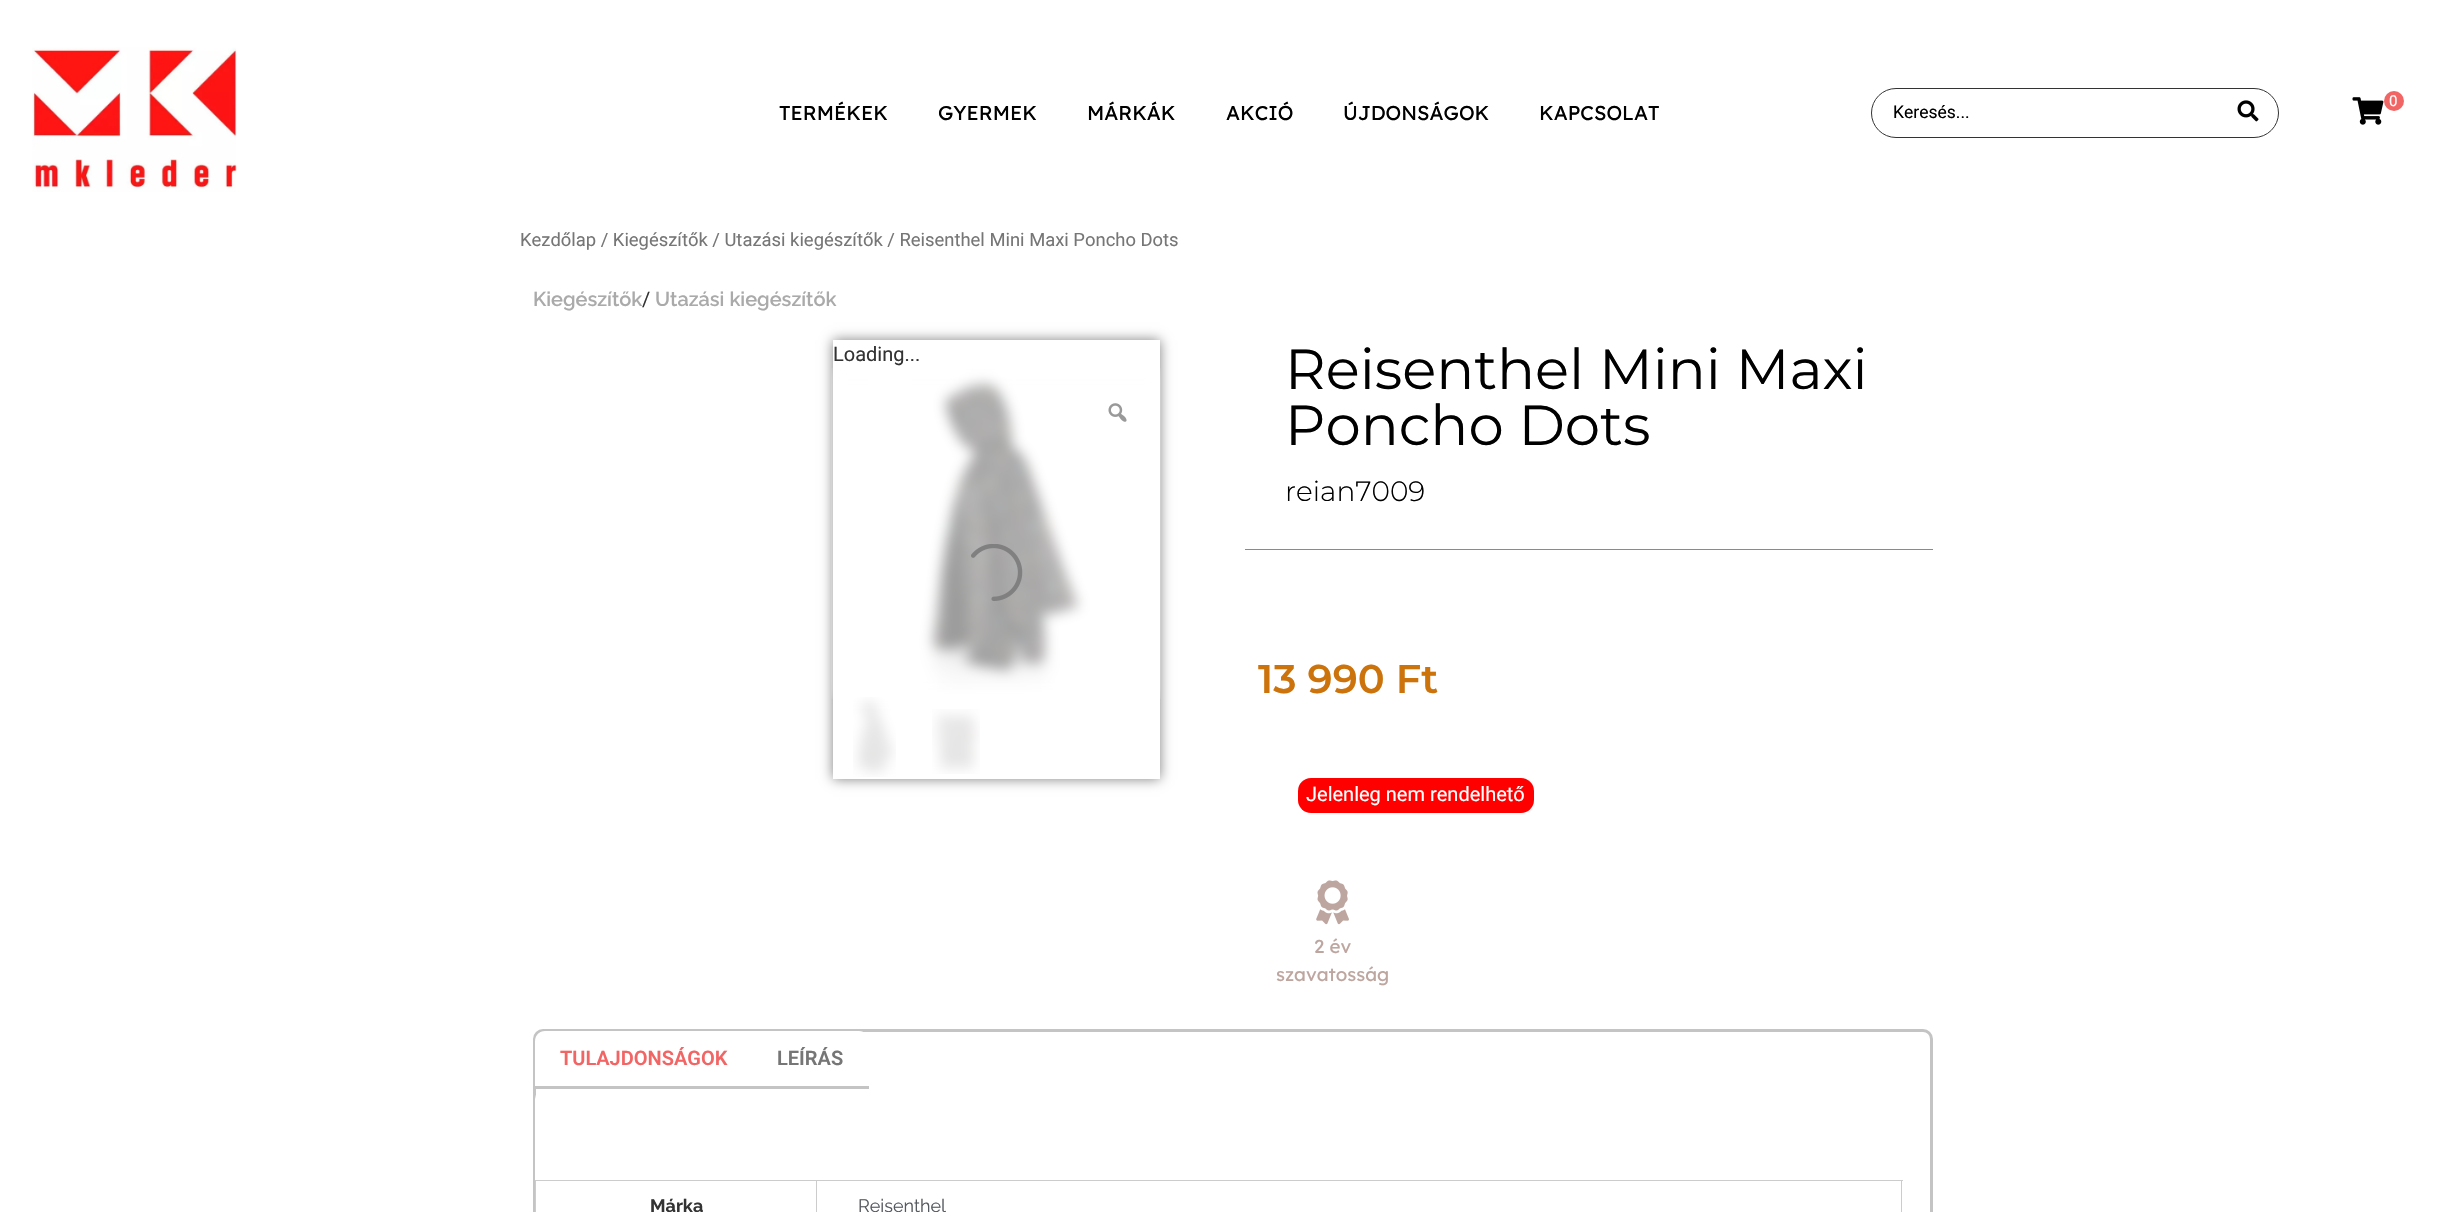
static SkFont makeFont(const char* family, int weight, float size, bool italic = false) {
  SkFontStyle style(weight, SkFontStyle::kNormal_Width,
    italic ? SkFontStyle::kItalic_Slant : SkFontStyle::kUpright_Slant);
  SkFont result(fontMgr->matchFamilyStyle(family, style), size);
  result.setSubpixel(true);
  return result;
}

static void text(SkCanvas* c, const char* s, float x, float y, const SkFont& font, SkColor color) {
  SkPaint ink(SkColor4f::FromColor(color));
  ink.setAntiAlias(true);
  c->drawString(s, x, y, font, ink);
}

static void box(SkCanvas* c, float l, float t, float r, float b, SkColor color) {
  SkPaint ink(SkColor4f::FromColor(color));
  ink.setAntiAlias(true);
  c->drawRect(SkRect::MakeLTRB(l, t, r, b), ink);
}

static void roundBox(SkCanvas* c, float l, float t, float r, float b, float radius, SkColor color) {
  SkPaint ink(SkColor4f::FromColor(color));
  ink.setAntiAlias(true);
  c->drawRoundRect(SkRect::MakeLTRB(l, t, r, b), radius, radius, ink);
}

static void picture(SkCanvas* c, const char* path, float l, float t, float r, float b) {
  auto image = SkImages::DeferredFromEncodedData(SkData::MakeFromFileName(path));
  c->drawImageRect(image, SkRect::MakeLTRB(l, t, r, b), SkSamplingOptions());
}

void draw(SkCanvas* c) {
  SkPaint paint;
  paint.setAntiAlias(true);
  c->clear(0xffffffff);
  picture(c, "img_01.png", 32, 47, 237, 192);
  SkFont face1 = makeFont("Lexend Deca", 400, 20);
  text(c, "TERMÉKEK", 779, 120, face1, 0xff000000);
  text(c, "GYERMEK", 938, 120, face1, 0xff000000);
  text(c, "MÁRKÁK", 1087, 120, face1, 0xff000000);
  text(c, "AKCIÓ", 1226, 120, face1, 0xff000000);
  text(c, "ÚJDONSÁGOK", 1343, 120, face1, 0xff000000);
  text(c, "KAPCSOLAT", 1539, 120, face1, 0xff000000);
  paint.setStyle(SkPaint::kStroke_Style);
  paint.setStrokeWidth(1);
  paint.setColor(0xff333333);
  c->drawRoundRect(SkRect::MakeLTRB(1871.5f, 88.5f, 2278.5f, 137.5f), 24.5f, 24.5f, paint);
  SkFont face2 = makeFont("Roboto", 400, 17.5f);
  text(c, "Keresés...", 1893, 118, face2, 0xff000000);
  picture(c, "img_02.png", 2237, 100, 2259, 122);
  picture(c, "img_03.png", 2352, 97, 2384, 125);
  paint.setStyle(SkPaint::kFill_Style);
  paint.setColor(0xfff26565);
  c->drawCircle(2394, 101, 10, paint);
  SkFont face3 = makeFont("Roboto", 400, 15);
  text(c, "0", 2389, 106, face3, 0xffffffff);
  SkFont face4 = makeFont("Roboto", 400, 18.4f);
  text(c, "Kezdőlap / Kiegészítők / Utazási kiegészítők / Reisenthel Mini Maxi Poncho Dots", 520, 246, face4, 0xff767676);
  SkFont face5 = makeFont("Raleway", 600, 20);
  text(c, "Kiegészítők", 533, 306, face5, 0xffabaaaa);
  SkFont face6 = makeFont("Roboto", 400, 20);
  text(c, "/", 642, 306, face6, 0xff333333);
  text(c, "Utazási kiegészítők", 655, 306, face5, 0xffabaaaa);
  c->save();
  c->clipPath(SkPathBuilder(SkPathFillType::kEvenOdd).moveTo(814, 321).lineTo(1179, 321).lineTo(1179, 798).lineTo(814, 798).close().moveTo(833, 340).lineTo(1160, 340).lineTo(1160, 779).lineTo(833, 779).close().detach(), true);
  paint.setColor(0x80000000);
  paint.setMaskFilter(SkMaskFilter::MakeBlur(kNormal_SkBlurStyle, 6));
  c->drawRect(SkRect::MakeLTRB(833, 340, 1160, 779), paint);
  paint.setMaskFilter(nullptr);
  c->restore();
  text(c, "Loading...", 833, 361, face6, 0xff333333);
  picture(c, "img_04.png", 831, 368, 1161, 699);
  picture(c, "img_05.png", 1108, 403, 1127, 422);
  picture(c, "img_06.png", 853, 697, 896, 777);
  picture(c, "img_07.png", 932, 709, 980, 774);
  picture(c, "img_08.png", 971, 544, 1023, 601);
  SkFont face7 = makeFont("Montserrat", 400, 56.25f);
  text(c, "Reisenthel Mini Maxi", 1285, 389, face7, 0xff000000);
  text(c, "Poncho Dots", 1285, 445, face7, 0xff000000);
  SkFont face8 = makeFont("Montserrat", 300, 28);
  text(c, "reian7009", 1285, 501, face8, 0xff000000);
  box(c, 1245, 549, 1933, 550, 0xff8a8a8a);
  SkFont face9 = makeFont("Montserrat", 600, 40);
  text(c, "13 990 Ft", 1258, 693, face9, 0xffcd730c);
  roundBox(c, 1298, 778, 1534, 813, 13, 0xffff0000);
  text(c, "Jelenleg nem rendelhető", 1306, 801, face6, 0xffffffff);
  picture(c, "img_09.png", 1316, 880, 1349, 925);
  SkFont face10 = makeFont("Lexend Deca", 400, 18.75f);
  text(c, "2 év", 1314, 953, face10, 0xffbea6a0);
  text(c, "szavatosság", 1276, 981, face10, 0xffbea6a0);
  paint.setStyle(SkPaint::kStroke_Style);
  paint.setStrokeWidth(3);
  paint.setColor(0xffc4c4c4);
  c->drawRoundRect(SkRect::MakeLTRB(534.5f, 1030.5f, 1931.5f, 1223.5f), 8.5f, 8.5f, paint);
  paint.setStyle(SkPaint::kFill_Style);
  paint.setColor(0xffffffff);
  c->drawPath(SkPathBuilder().moveTo(545, 1031).lineTo(859, 1031).cubicTo(864.5f, 1031, 869, 1035.5f, 869, 1041).lineTo(869, 1086).lineTo(535, 1086).lineTo(535, 1041).cubicTo(535, 1035.5f, 539.5f, 1031, 545, 1031).close().detach(), paint);
  box(c, 535, 1086, 869, 1089, 0xffc4c4c4);
  SkFont face11 = makeFont("Roboto", 600, 20);
  text(c, "TULAJDONSÁGOK", 560, 1065, face11, 0xfff26565);
  text(c, "LEÍRÁS", 777, 1065, face11, 0xff767676);
  roundBox(c, 535, 1089, 1930, 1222, 10, 0xffffffff);
  box(c, 816, 1180, 1903, 1181, 0xffcccccc);
  box(c, 816, 1180, 817, 1212, 0xffcccccc);
  box(c, 535, 1180, 818, 1181, 0xffcccccc);
  box(c, 535, 1180, 536, 1212, 0xffcccccc);
  SkFont face12 = makeFont("Raleway", 700, 18);
  text(c, "Márka", 650, 1212, face12, 0xff333333);
  box(c, 1901, 1180, 1902, 1212, 0xffcccccc);
  SkFont face13 = makeFont("Raleway", 400, 18);
  text(c, "Reisenthel", 858, 1212, face13, 0xff54595f);
}
